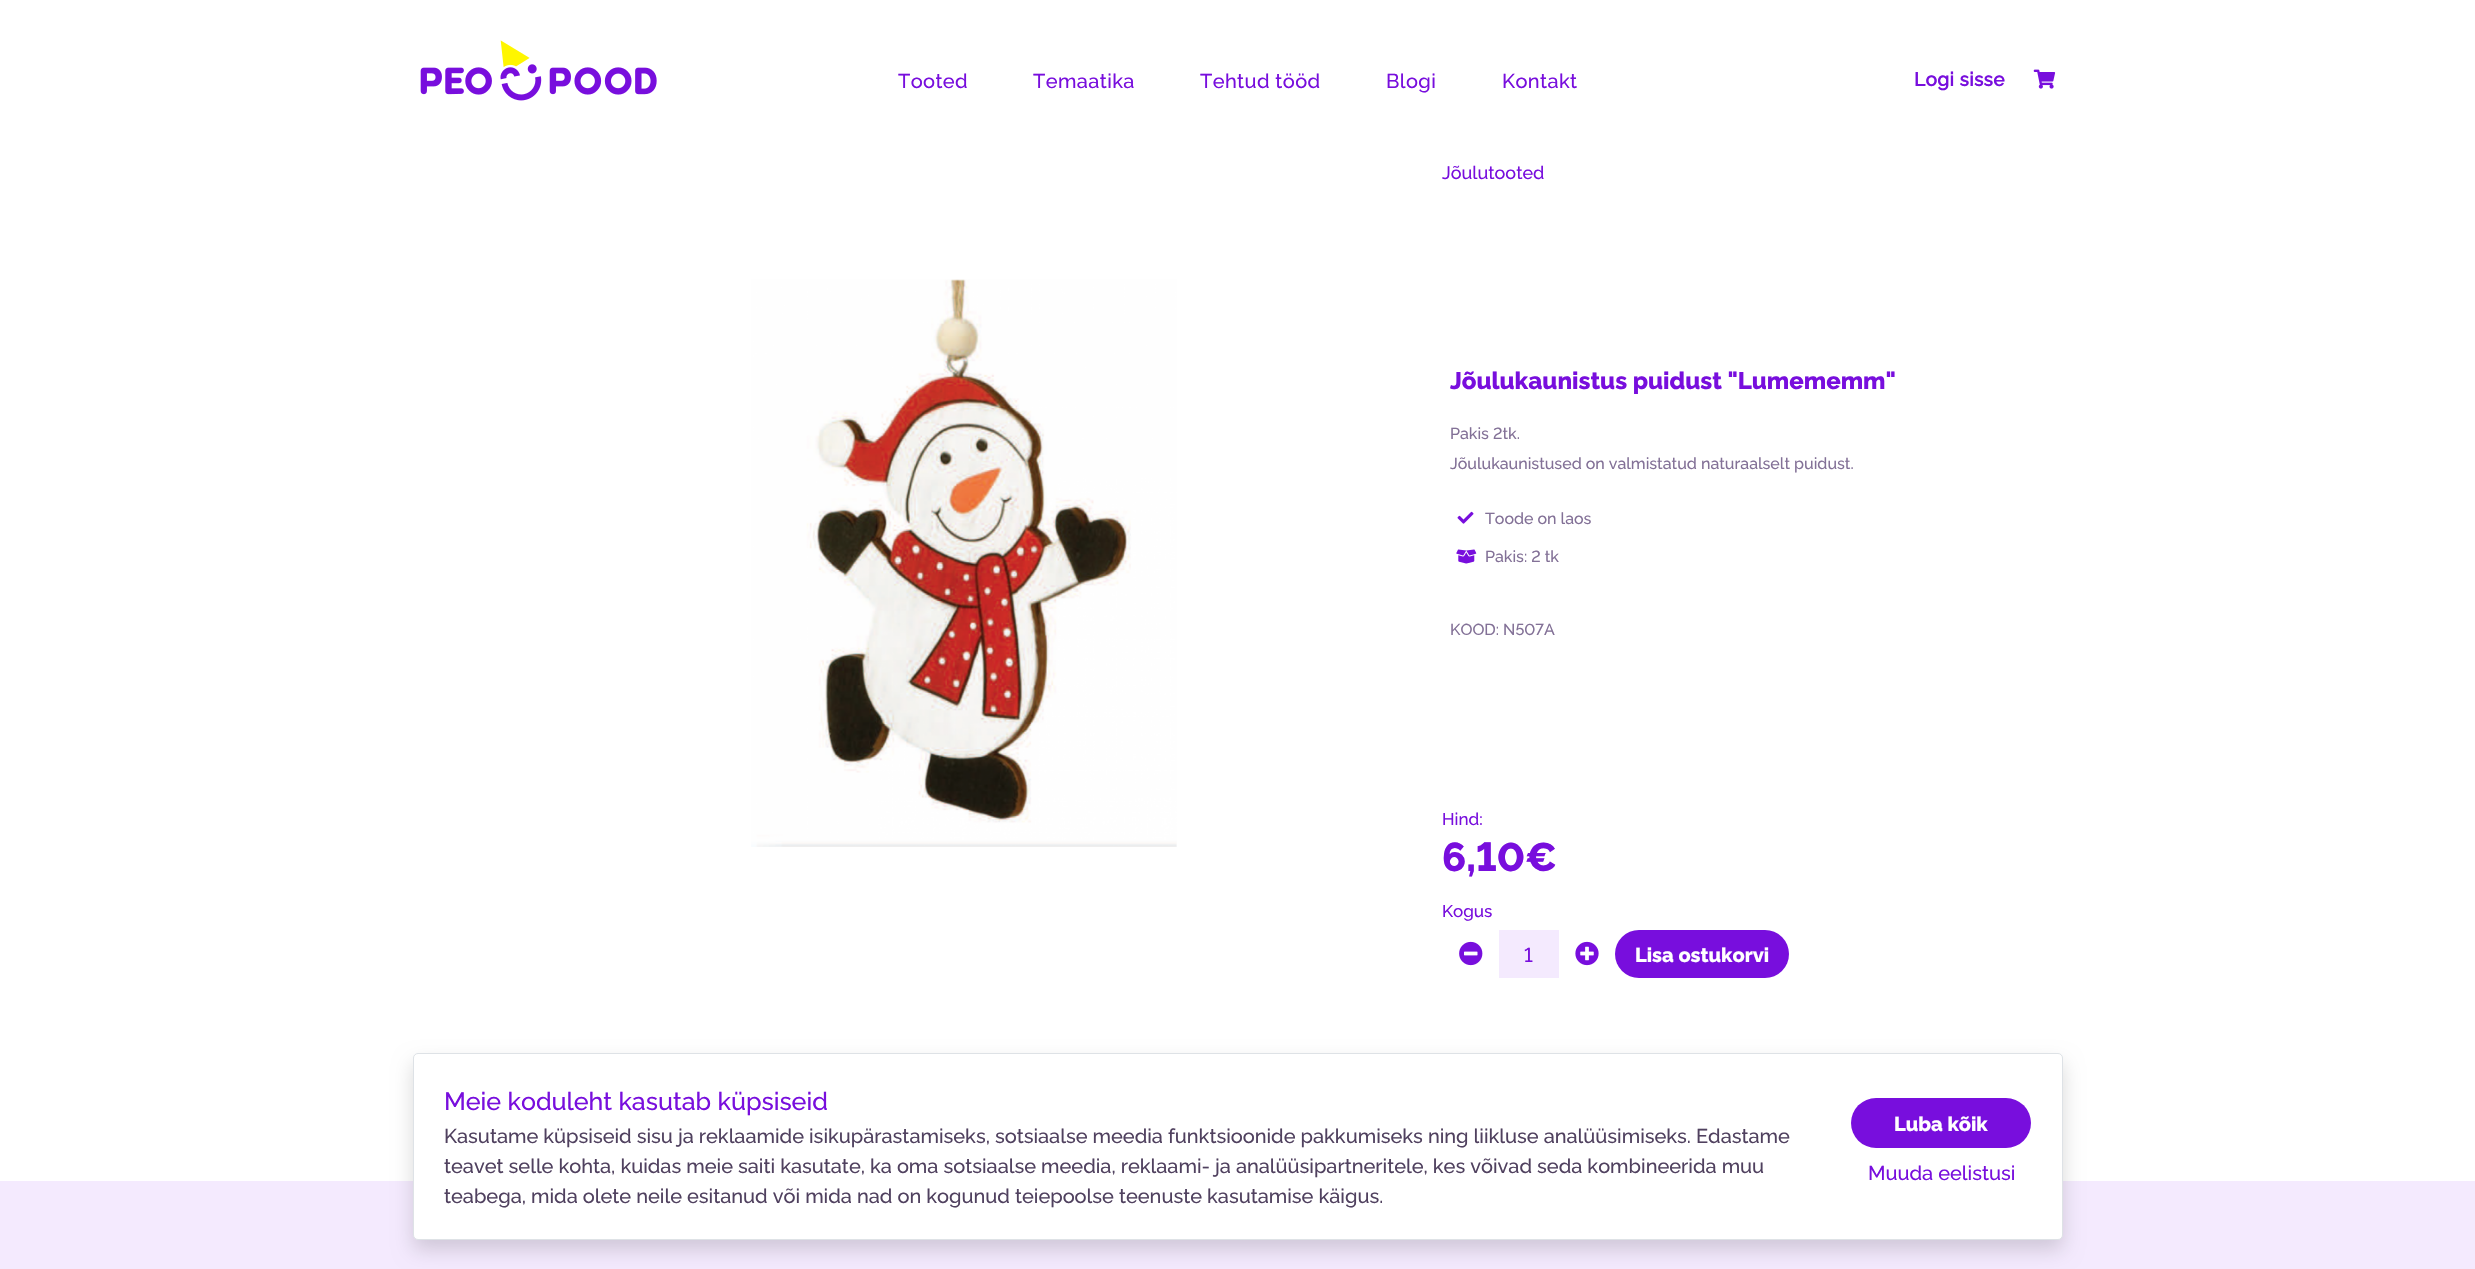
static SkFont makeFont(const char* family, int weight, float size, bool italic = false) {
  SkFontStyle style(weight, SkFontStyle::kNormal_Width,
    italic ? SkFontStyle::kItalic_Slant : SkFontStyle::kUpright_Slant);
  SkFont result(fontMgr->matchFamilyStyle(family, style), size);
  result.setSubpixel(true);
  return result;
}

static void text(SkCanvas* c, const char* s, float x, float y, const SkFont& font, SkColor color) {
  SkPaint ink(SkColor4f::FromColor(color));
  ink.setAntiAlias(true);
  c->drawString(s, x, y, font, ink);
}

static void spacedText(SkCanvas* c, const char* s, float x, float y, const SkFont& font, const SkPaint& ink, float letter, float word) {
  std::vector<SkGlyphID> glyphs(font.countText(s, strlen(s), SkTextEncoding::kUTF8));
  std::vector<float> xs(glyphs.size());
  font.textToGlyphs(s, strlen(s), SkTextEncoding::kUTF8, glyphs);
  font.getXPos(glyphs, xs, x);
  float extra = 0;
  for (size_t i = 0; i < glyphs.size(); i++) {
    xs[i] += extra;
    extra += letter + word * (glyphs[i] == font.unicharToGlyph(' '));
  }
  c->drawTextBlob(SkTextBlob::MakeFromPosHGlyphs(glyphs, xs, y, font), 0, 0, ink);
}

static void box(SkCanvas* c, float l, float t, float r, float b, SkColor color) {
  SkPaint ink(SkColor4f::FromColor(color));
  ink.setAntiAlias(true);
  c->drawRect(SkRect::MakeLTRB(l, t, r, b), ink);
}

static void roundBox(SkCanvas* c, float l, float t, float r, float b, float radius, SkColor color) {
  SkPaint ink(SkColor4f::FromColor(color));
  ink.setAntiAlias(true);
  c->drawRoundRect(SkRect::MakeLTRB(l, t, r, b), radius, radius, ink);
}

static void picture(SkCanvas* c, const char* path, float l, float t, float r, float b) {
  auto image = SkImages::DeferredFromEncodedData(SkData::MakeFromFileName(path));
  c->drawImageRect(image, SkRect::MakeLTRB(l, t, r, b), SkSamplingOptions());
}

void draw(SkCanvas* c) {
  SkPaint paint;
  paint.setAntiAlias(true);
  c->clear(0xffffffff);
  picture(c, "img_01.png", 420, 40, 657, 101);
  SkFont face1 = makeFont("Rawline", 500, 20);
  paint.setColor(0xff780edd);
  spacedText(c, "Tooted", 898, 88, face1, paint, 0.4f, 0);
  spacedText(c, "Temaatika", 1033, 88, face1, paint, 0.4f, 0);
  spacedText(c, "Tehtud tööd", 1200, 88, face1, paint, 0.4f, 0);
  spacedText(c, "Blogi", 1386, 88, face1, paint, 0.4f, 0);
  spacedText(c, "Kontakt", 1502, 88, face1, paint, 0.4f, 0);
  SkFont face2 = makeFont("Rawline", 700, 19);
  spacedText(c, "Logi sisse", 1914, 86, face2, paint, 0.4f, 0);
  picture(c, "img_02.png", 2033, 69, 2056, 89);
  picture(c, "img_03.png", 751, 279, 1177, 847);
  SkFont face3 = makeFont("Rawline", 500, 18);
  text(c, "Jõulutooted", 1442, 179, face3, 0xff780edd);
  SkFont face4 = makeFont("Rawline", 800, 24);
  text(c, "Jõulukaunistus puidust \"Lumememm\"", 1450, 389, face4, 0xff780edd);
  SkFont face5 = makeFont("Rawline", 500, 16);
  text(c, "Pakis 2tk.", 1450, 439, face5, 0xff837197);
  text(c, "Jõulukaunistused on valmistatud naturaalselt puidust.", 1450, 469, face5, 0xff837197);
  picture(c, "img_04.png", 1457, 511, 1474, 524);
  text(c, "Toode on laos", 1485, 524, face5, 0xff837197);
  picture(c, "img_05.png", 1456, 549, 1477, 564);
  text(c, "Pakis: 2 tk", 1485, 562, face5, 0xff837197);
  text(c, "KOOD: N507A", 1450, 635, face5, 0xff837197);
  SkFont face6 = makeFont("Rawline", 500, 17);
  text(c, "Hind:", 1442, 825, face6, 0xff780edd);
  SkFont face7 = makeFont("Rawline", 800, 40);
  text(c, "6,10€", 1442, 871, face7, 0xff780edd);
  text(c, "Kogus", 1442, 917, face6, 0xff780edd);
  picture(c, "img_06.png", 1459, 941, 1483, 966);
  box(c, 1499, 930, 1559, 978, 0xfff4eafe);
  text(c, "1", 1524, 962, face1, 0xff780edd);
  picture(c, "img_07.png", 1575, 941, 1599, 966);
  roundBox(c, 1615, 930, 1789, 978, 24, 0xff780edd);
  SkFont face8 = makeFont("Rawline", 800, 20);
  text(c, "Lisa ostukorvi", 1635, 962, face8, 0xffffffff);
  box(c, 0, 1181, 2475, 1269, 0xfff4eafe);
  paint.setColor(0x26000000);
  paint.setMaskFilter(SkMaskFilter::MakeBlur(kNormal_SkBlurStyle, 10));
  c->drawRoundRect(SkRect::MakeLTRB(413, 1063, 2063, 1250), 5, 5, paint);
  paint.setMaskFilter(nullptr);
  paint.setColor(0xffffffff);
  c->drawRoundRect(SkRect::MakeLTRB(413.5f, 1053.5f, 2062.5f, 1239.5f), 4.5f, 4.5f, paint);
  paint.setStyle(SkPaint::kStroke_Style);
  paint.setStrokeWidth(1);
  paint.setColor(0xffdee2e6);
  c->drawRoundRect(SkRect::MakeLTRB(413.5f, 1053.5f, 2062.5f, 1239.5f), 4.5f, 4.5f, paint);
  SkFont face9 = makeFont("Rawline", 500, 25);
  text(c, "Meie koduleht kasutab küpsiseid", 444, 1110, face9, 0xff780edd);
  text(c, "Kasutame küpsiseid sisu ja reklaamide isikupärastamiseks, sotsiaalse meedia funktsioonide pakkumiseks ning liikluse analüüsimiseks. Edastame", 444, 1143, face1, 0xff50415f);
  text(c, "teavet selle kohta, kuidas meie saiti kasutate, ka oma sotsiaalse meedia, reklaami- ja analüüsipartneritele, kes võivad seda kombineerida muu", 444, 1173, face1, 0xff50415f);
  text(c, "teabega, mida olete neile esitanud või mida nad on kogunud teiepoolse teenuste kasutamise käigus.", 444, 1203, face1, 0xff50415f);
  roundBox(c, 1851, 1098, 2031, 1148, 25, 0xff780edd);
  text(c, "Luba kõik", 1894, 1131, face8, 0xffffffff);
  text(c, "Muuda eelistusi", 1868, 1180, face1, 0xff780edd);
}
